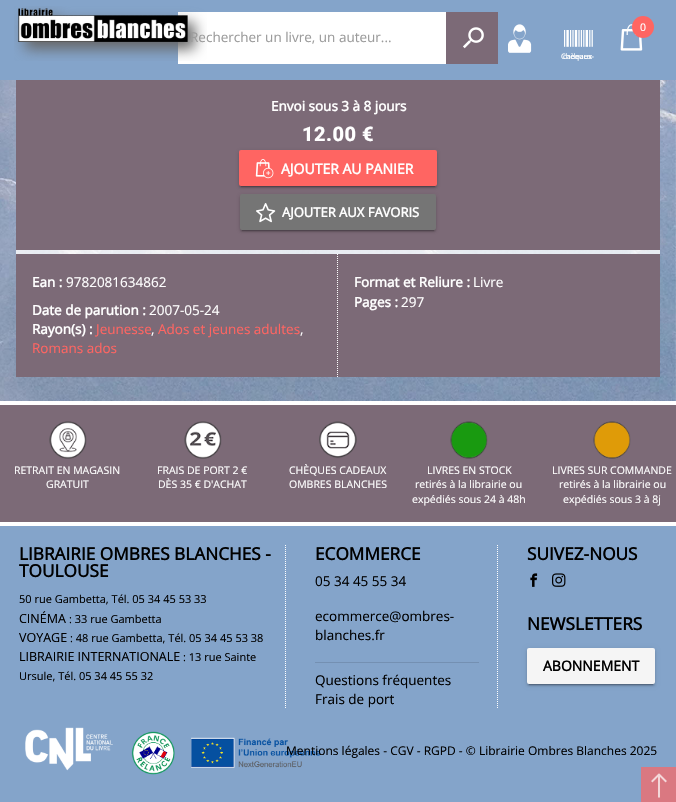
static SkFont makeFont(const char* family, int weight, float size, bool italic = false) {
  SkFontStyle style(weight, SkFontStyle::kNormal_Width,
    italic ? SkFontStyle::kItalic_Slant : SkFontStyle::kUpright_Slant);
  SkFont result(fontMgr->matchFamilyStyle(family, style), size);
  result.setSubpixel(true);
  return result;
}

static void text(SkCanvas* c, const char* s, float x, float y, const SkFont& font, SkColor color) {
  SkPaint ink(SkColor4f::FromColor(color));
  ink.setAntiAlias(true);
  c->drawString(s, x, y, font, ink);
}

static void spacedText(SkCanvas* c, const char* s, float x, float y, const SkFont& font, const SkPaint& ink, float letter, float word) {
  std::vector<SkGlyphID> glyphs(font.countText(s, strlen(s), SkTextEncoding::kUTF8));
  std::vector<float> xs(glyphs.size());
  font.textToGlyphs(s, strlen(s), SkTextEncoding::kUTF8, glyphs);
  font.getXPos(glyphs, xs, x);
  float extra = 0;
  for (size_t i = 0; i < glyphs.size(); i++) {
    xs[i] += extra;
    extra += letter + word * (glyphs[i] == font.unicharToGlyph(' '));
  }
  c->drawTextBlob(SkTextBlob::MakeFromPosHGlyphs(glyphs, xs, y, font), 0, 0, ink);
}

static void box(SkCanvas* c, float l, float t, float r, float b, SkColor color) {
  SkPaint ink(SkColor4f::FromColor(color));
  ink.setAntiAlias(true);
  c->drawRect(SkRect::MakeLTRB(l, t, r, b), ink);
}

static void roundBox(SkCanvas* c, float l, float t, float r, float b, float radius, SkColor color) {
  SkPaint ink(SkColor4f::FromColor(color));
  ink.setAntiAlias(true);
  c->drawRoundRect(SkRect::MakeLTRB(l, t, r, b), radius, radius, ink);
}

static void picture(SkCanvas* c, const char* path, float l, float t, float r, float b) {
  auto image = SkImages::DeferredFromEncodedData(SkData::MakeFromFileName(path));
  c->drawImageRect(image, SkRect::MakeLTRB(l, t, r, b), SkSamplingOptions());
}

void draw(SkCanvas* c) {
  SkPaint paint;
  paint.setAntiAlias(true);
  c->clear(0xffffffff);
  picture(c, "img_01.png", 0, 80, 676, 401);
  box(c, 0, 0, 676, 80, 0xff84a4ca);
  box(c, 178, 12, 446, 64, 0xffffffff);
  picture(c, "img_02.png", 14, 6, 207, 61);
  SkFont face1 = makeFont("Open Sans", 400, 13.5f);
  text(c, "Rechercher un livre, un auteur...", 190, 42, face1, 0xff9b9b9b);
  box(c, 446, 12, 498, 64, 0xff7c6a77);
  picture(c, "img_03.png", 463, 27, 484, 49);
  picture(c, "img_04.png", 508, 24, 532, 53);
  picture(c, "img_05.png", 620, 24, 643, 51);
  paint.setColor(0xffff6562);
  c->drawCircle(643, 27, 11, paint);
  SkFont face2 = makeFont("Open Sans", 400, 10.5f);
  text(c, "0", 640, 31, face2, 0xffffffff);
  picture(c, "img_06.png", 564, 30, 593, 47);
  SkFont face3 = makeFont("Open Sans", 400, 7.5f);
  text(c, "Chèques-", 561, 59, face3, 0xffffffff);
  text(c, "cadeaux", 563, 59, face3, 0xffffffff);
  box(c, 16, 250, 660, 254, 0xccffffff);
  box(c, 16, 80, 660, 250, 0xff7c6a77);
  SkFont face4 = makeFont("Open Sans", 700, 13.5f);
  text(c, "Envoi sous 3 à 8 jours", 271, 111, face4, 0xffffffff);
  SkFont face5 = makeFont("Roboto", 800, 20);
  paint.setColor(0xffffffff);
  spacedText(c, "12.00 €", 302, 141, face5, paint, 0.5f, 0);
  paint.setColor(0x1f000000);
  paint.setMaskFilter(SkMaskFilter::MakeBlur(kNormal_SkBlurStyle, 2.5f));
  c->drawRoundRect(SkRect::MakeLTRB(239, 151, 437, 187), 2, 2, paint);
  paint.setMaskFilter(nullptr);
  paint.setColor(0x24000000);
  paint.setMaskFilter(SkMaskFilter::MakeBlur(kNormal_SkBlurStyle, 1));
  c->drawRoundRect(SkRect::MakeLTRB(239, 152, 437, 188), 2, 2, paint);
  paint.setMaskFilter(nullptr);
  paint.setColor(0x33000000);
  paint.setMaskFilter(SkMaskFilter::MakeBlur(kNormal_SkBlurStyle, 0.5f));
  c->drawRect(SkRect::MakeLTRB(241, 155, 435, 187), paint);
  paint.setMaskFilter(nullptr);
  roundBox(c, 239, 150, 437, 186, 2, 0xffff6562);
  picture(c, "img_07.png", 255, 159, 274, 179);
  SkFont face6 = makeFont("Open Sans", 700, 14);
  text(c, "AJOUTER AU PANIER", 281, 174, face6, 0xffffffff);
  paint.setColor(0x1f000000);
  paint.setMaskFilter(SkMaskFilter::MakeBlur(kNormal_SkBlurStyle, 2.5f));
  c->drawRoundRect(SkRect::MakeLTRB(240, 195, 436, 231), 2, 2, paint);
  paint.setMaskFilter(nullptr);
  paint.setColor(0x24000000);
  paint.setMaskFilter(SkMaskFilter::MakeBlur(kNormal_SkBlurStyle, 1));
  c->drawRoundRect(SkRect::MakeLTRB(240, 196, 436, 232), 2, 2, paint);
  paint.setMaskFilter(nullptr);
  paint.setColor(0x33000000);
  paint.setMaskFilter(SkMaskFilter::MakeBlur(kNormal_SkBlurStyle, 0.5f));
  c->drawRect(SkRect::MakeLTRB(242, 199, 434, 231), paint);
  paint.setMaskFilter(nullptr);
  roundBox(c, 240, 194, 436, 230, 2, 0xff757575);
  picture(c, "img_08.png", 256, 203, 276, 223);
  SkFont face7 = makeFont("Open Sans", 700, 13);
  text(c, "AJOUTER AUX FAVORIS", 282, 217, face7, 0xffffffff);
  box(c, 16, 254, 660, 377, 0xff7c6a77);
  paint.setStyle(SkPaint::kStroke_Style);
  paint.setStrokeWidth(1);
  paint.setColor(0xffffffff);
  paint.setPathEffect(SkDashPathEffect::Make({{1, 1}}, 0));
  c->drawPath(SkPathBuilder().moveTo(337.5f, 254).lineTo(337.5f, 377).detach(), paint);
  paint.setPathEffect(nullptr);
  text(c, "Ean :", 32, 287, face4, 0xffffffff);
  text(c, "9782081634862", 66, 287, face1, 0xffffffff);
  text(c, "Date de parution :", 32, 315, face4, 0xffffffff);
  text(c, "2007-05-24", 149, 315, face1, 0xffffffff);
  text(c, "Rayon(s) :", 32, 334, face4, 0xffffffff);
  text(c, "Jeunesse", 96, 334, face1, 0xffff6562);
  text(c, ",", 151, 334, face1, 0xffffffff);
  text(c, "Ados et jeunes adultes", 158, 334, face1, 0xffff6562);
  text(c, ",", 300, 334, face1, 0xffffffff);
  text(c, "Romans ados", 32, 353, face1, 0xffff6562);
  text(c, "Format et Reliure :", 354, 287, face4, 0xffffffff);
  text(c, "Livre", 473, 287, face1, 0xffffffff);
  text(c, "Pages :", 354, 307, face4, 0xffffffff);
  text(c, "297", 401, 307, face1, 0xffffffff);
  box(c, 0, 526, 676, 802, 0xff84a4ca);
  box(c, 641, 767, 676, 802, 0xffda7881);
  picture(c, "img_09.png", 651, 773, 667, 798);
  box(c, 0, 405, 676, 522, 0xff7c6a77);
  picture(c, "img_10.png", 49, 421, 87, 459);
  text(c, "RETRAIT EN MAGASIN", 14, 474, face2, 0xffffffff);
  text(c, "GRATUIT", 46, 488, face2, 0xffffffff);
  picture(c, "img_11.png", 184, 421, 222, 459);
  text(c, "FRAIS DE PORT 2 €", 157, 474, face2, 0xffffffff);
  text(c, "DÈS 35 € D'ACHAT", 158, 488, face2, 0xffffffff);
  picture(c, "img_12.png", 319, 421, 357, 459);
  text(c, "CHÈQUES CADEAUX", 289, 474, face2, 0xffffffff);
  text(c, "OMBRES BLANCHES", 289, 488, face2, 0xffffffff);
  picture(c, "img_13.png", 450, 421, 488, 459);
  text(c, "LIVRES EN STOCK", 427, 474, face2, 0xffffffff);
  text(c, "retirés à la librairie ou", 415, 488, face2, 0xffffffff);
  text(c, "expédiés sous 24 à 48h", 412, 503, face2, 0xffffffff);
  picture(c, "img_14.png", 593, 421, 631, 459);
  text(c, "LIVRES SUR COMMANDE", 552, 474, face2, 0xffffffff);
  text(c, "retirés à la librairie ou", 559, 488, face2, 0xffffffff);
  text(c, "expédiés sous 3 à 8j", 563, 503, face2, 0xffffffff);
  SkFont face8 = makeFont("Open Sans", 700, 17.25f);
  text(c, "LIBRAIRIE OMBRES BLANCHES -", 19, 560, face8, 0xff000000);
  text(c, "TOULOUSE", 19, 577, face8, 0xff000000);
  SkFont face9 = makeFont("Open Sans", 400, 11);
  text(c, "50 rue Gambetta, Tél. 05 34 45 53 33", 19, 603, face9, 0xff000000);
  SkFont face10 = makeFont("Open Sans", 400, 12.5f);
  text(c, "CINÉMA", 19, 623, face10, 0xff000000);
  text(c, ": 33 rue Gambetta", 69, 623, face9, 0xff000000);
  text(c, "VOYAGE", 19, 642, face10, 0xff000000);
  text(c, ": 48 rue Gambetta, Tél. 05 34 45 53 38", 70, 642, face9, 0xff000000);
  text(c, "LIBRAIRIE INTERNATIONALE", 19, 661, face10, 0xff000000);
  text(c, ": 13 rue Sainte", 183, 661, face9, 0xff000000);
  text(c, "Ursule, Tél. 05 34 45 55 32", 19, 680, face9, 0xff000000);
  paint.setPathEffect(SkDashPathEffect::Make({{1, 1}}, 0));
  c->drawPath(SkPathBuilder().moveTo(285.5f, 545).lineTo(285.5f, 709).detach(), paint);
  paint.setPathEffect(nullptr);
  text(c, "ECOMMERCE", 315, 560, face8, 0xff000000);
  text(c, "05 34 45 55 34", 315, 586, face1, 0xff000000);
  text(c, "ecommerce@ombres-", 315, 621, face1, 0xff000000);
  text(c, "blanches.fr", 315, 640, face1, 0xff000000);
  box(c, 315, 662, 479, 663, 0xff7490b2);
  text(c, "Questions fréquentes", 315, 685, face1, 0xff000000);
  text(c, "Frais de port", 315, 704, face1, 0xff000000);
  paint.setPathEffect(SkDashPathEffect::Make({{1, 1}}, 0));
  c->drawPath(SkPathBuilder().moveTo(497.5f, 545).lineTo(497.5f, 709).detach(), paint);
  paint.setPathEffect(nullptr);
  text(c, "SUIVEZ-NOUS", 527, 560, face8, 0xff000000);
  picture(c, "img_15.png", 530, 573, 538, 587);
  picture(c, "img_16.png", 552, 573, 566, 587);
  text(c, "NEWSLETTERS", 527, 630, face8, 0xff000000);
  paint.setStyle(SkPaint::kFill_Style);
  paint.setColor(0x1f000000);
  paint.setMaskFilter(SkMaskFilter::MakeBlur(kNormal_SkBlurStyle, 2.5f));
  c->drawRoundRect(SkRect::MakeLTRB(527, 649, 655, 685), 2, 2, paint);
  paint.setMaskFilter(nullptr);
  paint.setColor(0x24000000);
  paint.setMaskFilter(SkMaskFilter::MakeBlur(kNormal_SkBlurStyle, 1));
  c->drawRoundRect(SkRect::MakeLTRB(527, 650, 655, 686), 2, 2, paint);
  paint.setMaskFilter(nullptr);
  paint.setColor(0x33000000);
  paint.setMaskFilter(SkMaskFilter::MakeBlur(kNormal_SkBlurStyle, 0.5f));
  c->drawRect(SkRect::MakeLTRB(529, 653, 653, 685), paint);
  paint.setMaskFilter(nullptr);
  roundBox(c, 527, 648, 655, 684, 2, 0xfff5f5f5);
  text(c, "ABONNEMENT", 543, 671, face6, 0xff000000);
  picture(c, "img_17.png", 25, 727, 113, 771);
  picture(c, "img_18.png", 131, 731, 321, 775);
  SkFont face11 = makeFont("Open Sans", 400, 12);
  text(c, "Mentions légales - CGV - RGPD - © Librairie Ombres Blanches 2025", 286, 755, face11, 0xff000000);
}
